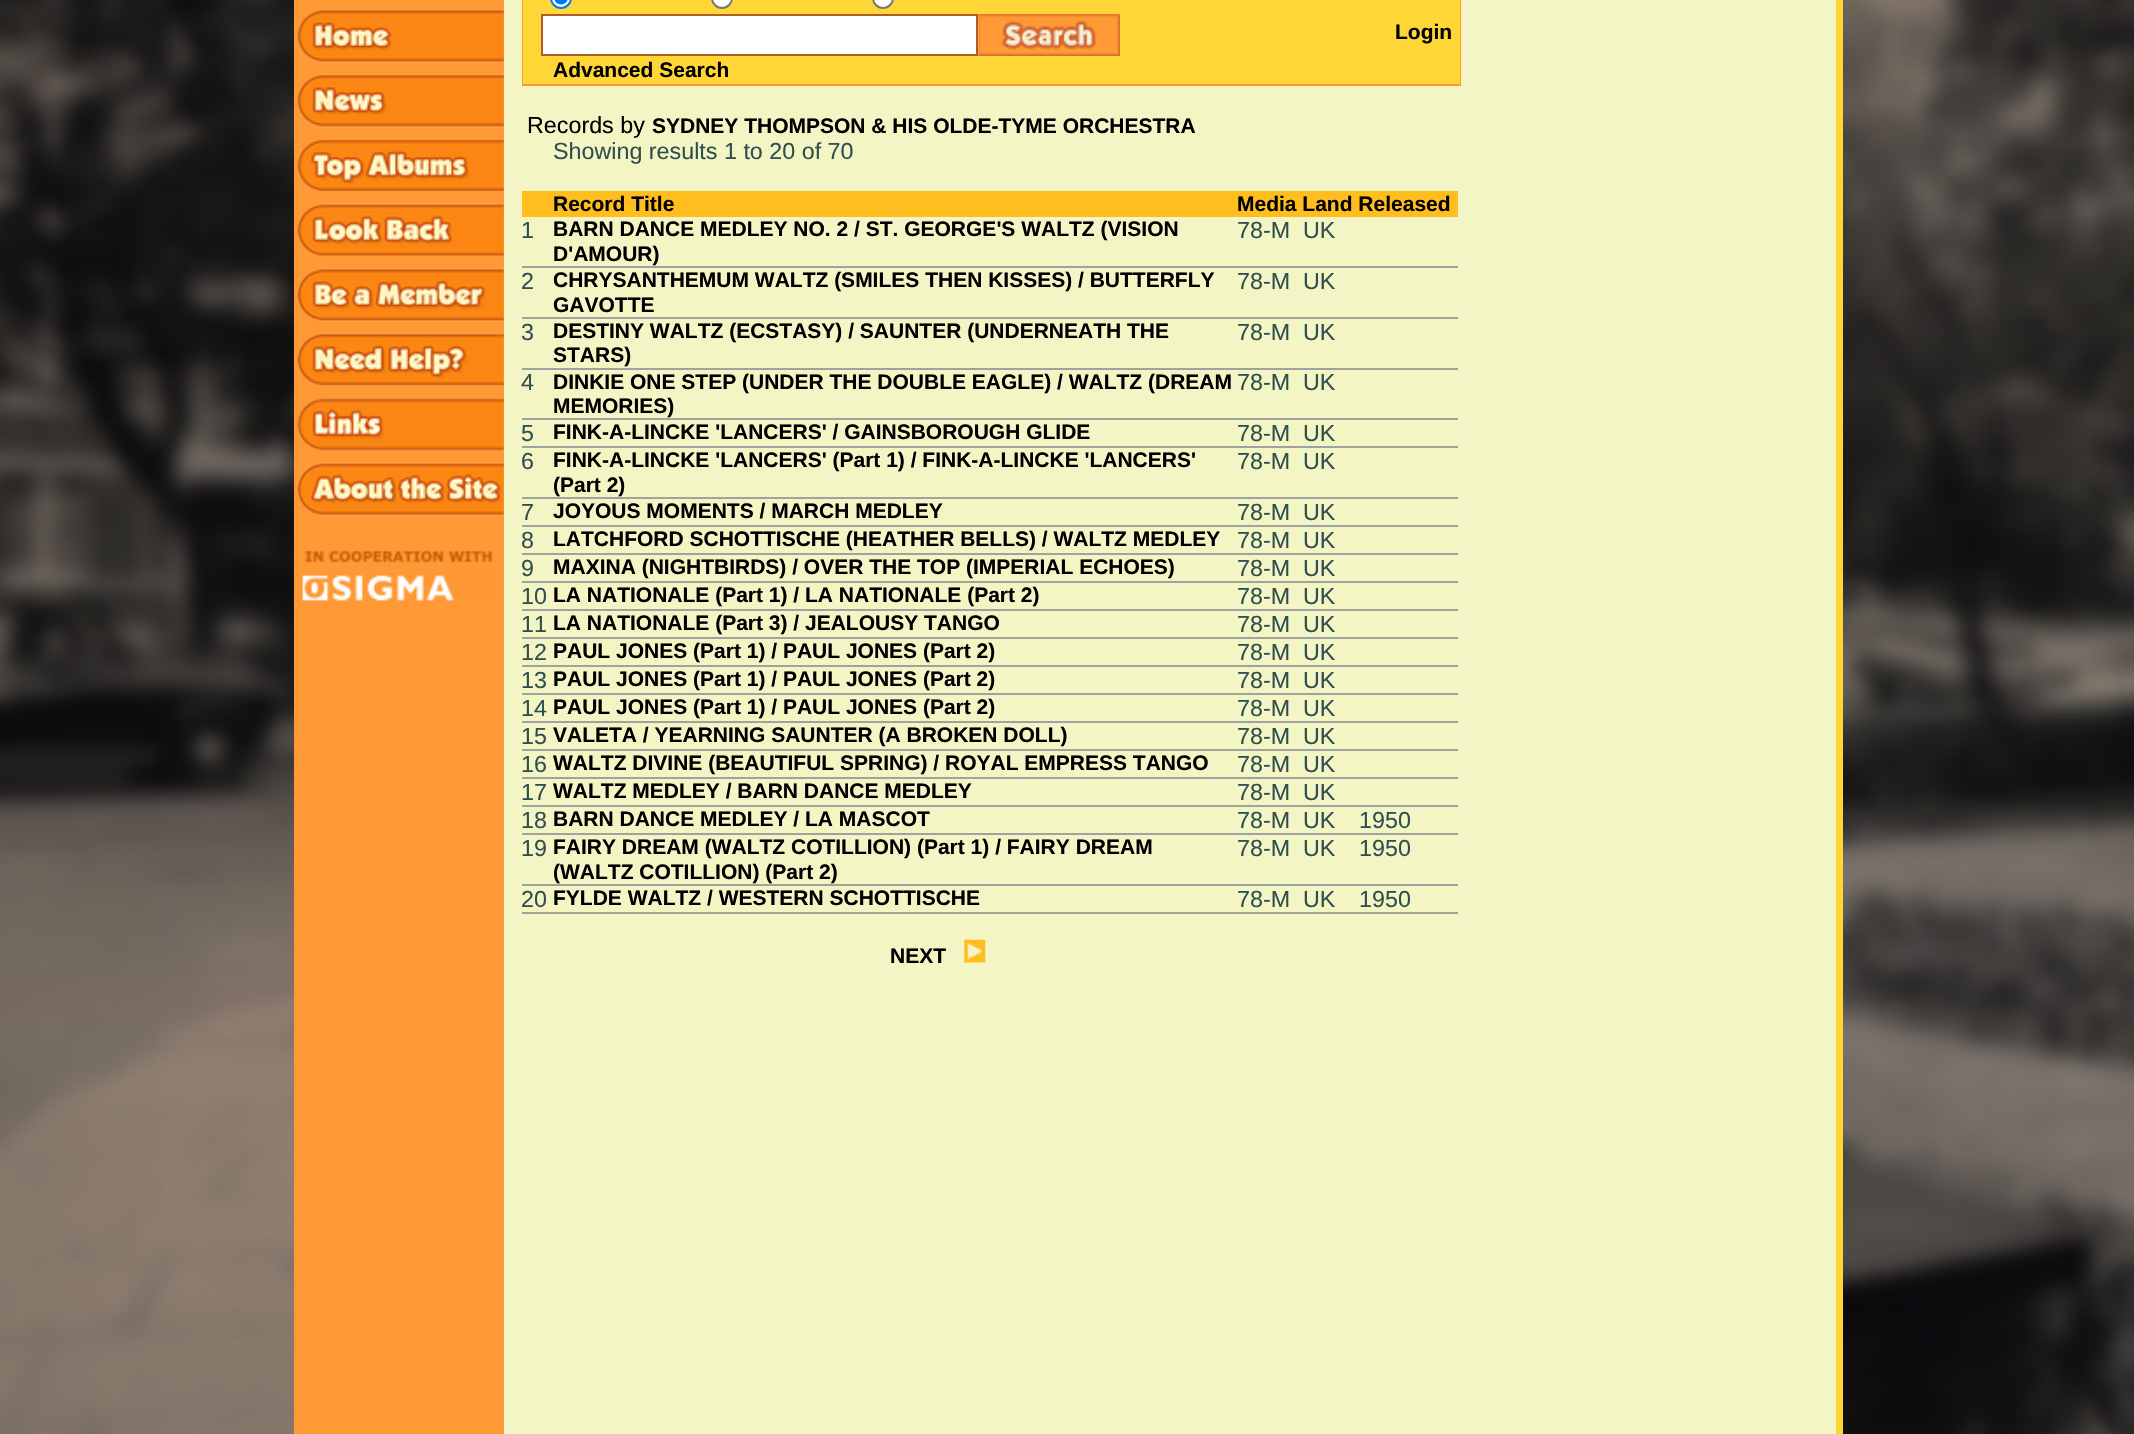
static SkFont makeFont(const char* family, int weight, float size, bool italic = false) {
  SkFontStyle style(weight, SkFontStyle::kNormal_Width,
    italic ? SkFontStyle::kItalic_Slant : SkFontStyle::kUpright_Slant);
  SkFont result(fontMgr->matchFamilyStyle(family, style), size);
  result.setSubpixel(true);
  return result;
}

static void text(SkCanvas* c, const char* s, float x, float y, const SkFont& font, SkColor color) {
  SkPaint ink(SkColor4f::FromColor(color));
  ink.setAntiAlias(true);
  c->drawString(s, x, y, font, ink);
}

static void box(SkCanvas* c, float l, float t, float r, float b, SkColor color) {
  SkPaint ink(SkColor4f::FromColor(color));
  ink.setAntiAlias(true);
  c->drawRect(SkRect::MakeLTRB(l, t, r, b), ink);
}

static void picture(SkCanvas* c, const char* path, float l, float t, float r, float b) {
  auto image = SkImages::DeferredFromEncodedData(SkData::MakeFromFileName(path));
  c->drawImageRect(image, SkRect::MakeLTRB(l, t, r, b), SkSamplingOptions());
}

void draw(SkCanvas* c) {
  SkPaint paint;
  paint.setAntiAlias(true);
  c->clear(0xffffffff);
  picture(c, "img_01.png", 0, 0, 2134, 1434);
  box(c, 504, 0, 1836, 1434, 0xfff4f5c5);
  box(c, 294, 0, 504, 1434, 0xfffe9936);
  picture(c, "img_02.png", 296, 9, 504, 63);
  picture(c, "img_03.png", 296, 73, 504, 128);
  picture(c, "img_04.png", 296, 138, 504, 193);
  picture(c, "img_05.png", 296, 203, 504, 257);
  picture(c, "img_06.png", 296, 268, 504, 322);
  picture(c, "img_07.png", 296, 332, 504, 387);
  picture(c, "img_08.png", 297, 398, 504, 451);
  picture(c, "img_09.png", 296, 462, 504, 516);
  picture(c, "img_10.png", 302, 550, 493, 601);
  paint.setStyle(SkPaint::kStroke_Style);
  paint.setStrokeWidth(2);
  paint.setColor(0xfffe9936);
  c->drawRect(SkRect::MakeLTRB(523, -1, 1460, 85), paint);
  box(c, 523, 0, 1460, 84, 0xfffed636);
  SkFont face1 = makeFont("Liberation Sans", 700, 21);
  text(c, "Login", 1395, 39, face1, 0xff000000);
  paint.setStyle(SkPaint::kFill_Style);
  paint.setColor(0xffffffff);
  c->drawCircle(561, -2, 10, paint);
  paint.setStyle(SkPaint::kStroke_Style);
  paint.setColor(0xff0075ff);
  c->drawCircle(561, -2, 10, paint);
  paint.setStyle(SkPaint::kFill_Style);
  c->drawCircle(561, -2.5f, 7, paint);
  paint.setColor(0xffffffff);
  c->drawCircle(722, -2, 10, paint);
  paint.setStyle(SkPaint::kStroke_Style);
  paint.setColor(0xff767676);
  c->drawCircle(722, -2, 10, paint);
  paint.setStyle(SkPaint::kFill_Style);
  paint.setColor(0xffffffff);
  c->drawCircle(883, -2, 10, paint);
  paint.setStyle(SkPaint::kStroke_Style);
  paint.setColor(0xff767676);
  c->drawCircle(883, -2, 10, paint);
  paint.setStyle(SkPaint::kFill_Style);
  paint.setColor(0xffffffff);
  c->drawRect(SkRect::MakeLTRB(542, 15, 977, 55), paint);
  paint.setStyle(SkPaint::kStroke_Style);
  paint.setColor(0xffad5e24);
  c->drawRect(SkRect::MakeLTRB(542, 15, 977, 55), paint);
  picture(c, "img_11.png", 978, 14, 1120, 56);
  text(c, "Advanced Search", 553, 77, face1, 0xff000000);
  SkFont face2 = makeFont("Liberation Sans", 400, 23.3f);
  text(c, "Records by", 527, 133, face2, 0xff000000);
  text(c, "SYDNEY THOMPSON & HIS OLDE-TYME ORCHESTRA", 652, 133, face1, 0xff000000);
  text(c, "Showing results 1 to 20 of 70", 553, 159, face2, 0xff2f4f4f);
  box(c, 522, 191, 1458, 217, 0xffffbd1e);
  text(c, "Record Title", 553, 211, face1, 0xff000000);
  text(c, "Media Land Released", 1237, 211, face1, 0xff000000);
  text(c, "1", 521, 238, face2, 0xff2f4f4f);
  text(c, "BARN DANCE MEDLEY NO. 2 / ST. GEORGE'S WALTZ (VISION", 553, 236, face1, 0xff000000);
  text(c, "D'AMOUR)", 553, 261, face1, 0xff000000);
  text(c, "78-M", 1237, 238, face2, 0xff2f4f4f);
  text(c, "UK", 1303, 238, face2, 0xff2f4f4f);
  box(c, 522, 266, 1458, 268, 0xffa0a39d);
  text(c, "2", 521, 289, face2, 0xff2f4f4f);
  text(c, "CHRYSANTHEMUM WALTZ (SMILES THEN KISSES) / BUTTERFLY", 553, 287, face1, 0xff000000);
  text(c, "GAVOTTE", 553, 312, face1, 0xff000000);
  text(c, "78-M", 1237, 289, face2, 0xff2f4f4f);
  text(c, "UK", 1303, 289, face2, 0xff2f4f4f);
  box(c, 522, 317, 1458, 319, 0xffa0a39d);
  text(c, "3", 521, 340, face2, 0xff2f4f4f);
  text(c, "DESTINY WALTZ (ECSTASY) / SAUNTER (UNDERNEATH THE", 553, 338, face1, 0xff000000);
  text(c, "STARS)", 553, 362, face1, 0xff000000);
  text(c, "78-M", 1237, 340, face2, 0xff2f4f4f);
  text(c, "UK", 1303, 340, face2, 0xff2f4f4f);
  box(c, 522, 368, 1458, 370, 0xffa0a39d);
  text(c, "4", 521, 390, face2, 0xff2f4f4f);
  text(c, "DINKIE ONE STEP (UNDER THE DOUBLE EAGLE) / WALTZ (DREAM", 553, 389, face1, 0xff000000);
  text(c, "MEMORIES)", 553, 413, face1, 0xff000000);
  text(c, "78-M", 1237, 390, face2, 0xff2f4f4f);
  text(c, "UK", 1303, 390, face2, 0xff2f4f4f);
  box(c, 522, 418, 1458, 420, 0xffa0a39d);
  text(c, "5", 521, 441, face2, 0xff2f4f4f);
  text(c, "FINK-A-LINCKE 'LANCERS' / GAINSBOROUGH GLIDE", 553, 439, face1, 0xff000000);
  text(c, "78-M", 1237, 441, face2, 0xff2f4f4f);
  text(c, "UK", 1303, 441, face2, 0xff2f4f4f);
  box(c, 522, 446, 1458, 448, 0xffa0a39d);
  text(c, "6", 521, 469, face2, 0xff2f4f4f);
  text(c, "FINK-A-LINCKE 'LANCERS' (Part 1) / FINK-A-LINCKE 'LANCERS'", 553, 467, face1, 0xff000000);
  text(c, "(Part 2)", 553, 492, face1, 0xff000000);
  text(c, "78-M", 1237, 469, face2, 0xff2f4f4f);
  text(c, "UK", 1303, 469, face2, 0xff2f4f4f);
  box(c, 522, 497, 1458, 499, 0xffa0a39d);
  text(c, "7", 521, 520, face2, 0xff2f4f4f);
  text(c, "JOYOUS MOMENTS / MARCH MEDLEY", 553, 518, face1, 0xff000000);
  text(c, "78-M", 1237, 520, face2, 0xff2f4f4f);
  text(c, "UK", 1303, 520, face2, 0xff2f4f4f);
  box(c, 522, 525, 1458, 527, 0xffa0a39d);
  text(c, "8", 521, 548, face2, 0xff2f4f4f);
  text(c, "LATCHFORD SCHOTTISCHE (HEATHER BELLS) / WALTZ MEDLEY", 553, 546, face1, 0xff000000);
  text(c, "78-M", 1237, 548, face2, 0xff2f4f4f);
  text(c, "UK", 1303, 548, face2, 0xff2f4f4f);
  box(c, 522, 553, 1458, 555, 0xffa0a39d);
  text(c, "9", 521, 576, face2, 0xff2f4f4f);
  text(c, "MAXINA (NIGHTBIRDS) / OVER THE TOP (IMPERIAL ECHOES)", 553, 574, face1, 0xff000000);
  text(c, "78-M", 1237, 576, face2, 0xff2f4f4f);
  text(c, "UK", 1303, 576, face2, 0xff2f4f4f);
  box(c, 522, 581, 1458, 583, 0xffa0a39d);
  text(c, "10", 521, 604, face2, 0xff2f4f4f);
  text(c, "LA NATIONALE (Part 1) / LA NATIONALE (Part 2)", 553, 602, face1, 0xff000000);
  text(c, "78-M", 1237, 604, face2, 0xff2f4f4f);
  text(c, "UK", 1303, 604, face2, 0xff2f4f4f);
  box(c, 522, 609, 1458, 611, 0xffa0a39d);
  text(c, "11", 521, 632, face2, 0xff2f4f4f);
  text(c, "LA NATIONALE (Part 3) / JEALOUSY TANGO", 553, 630, face1, 0xff000000);
  text(c, "78-M", 1237, 632, face2, 0xff2f4f4f);
  text(c, "UK", 1303, 632, face2, 0xff2f4f4f);
  box(c, 522, 637, 1458, 639, 0xffa0a39d);
  text(c, "12", 521, 660, face2, 0xff2f4f4f);
  text(c, "PAUL JONES (Part 1) / PAUL JONES (Part 2)", 553, 658, face1, 0xff000000);
  text(c, "78-M", 1237, 660, face2, 0xff2f4f4f);
  text(c, "UK", 1303, 660, face2, 0xff2f4f4f);
  box(c, 522, 665, 1458, 667, 0xffa0a39d);
  text(c, "13", 521, 688, face2, 0xff2f4f4f);
  text(c, "PAUL JONES (Part 1) / PAUL JONES (Part 2)", 553, 686, face1, 0xff000000);
  text(c, "78-M", 1237, 688, face2, 0xff2f4f4f);
  text(c, "UK", 1303, 688, face2, 0xff2f4f4f);
  box(c, 522, 693, 1458, 695, 0xffa0a39d);
  text(c, "14", 521, 716, face2, 0xff2f4f4f);
  text(c, "PAUL JONES (Part 1) / PAUL JONES (Part 2)", 553, 714, face1, 0xff000000);
  text(c, "78-M", 1237, 716, face2, 0xff2f4f4f);
  text(c, "UK", 1303, 716, face2, 0xff2f4f4f);
  box(c, 522, 721, 1458, 723, 0xffa0a39d);
  text(c, "15", 521, 744, face2, 0xff2f4f4f);
  text(c, "VALETA / YEARNING SAUNTER (A BROKEN DOLL)", 553, 742, face1, 0xff000000);
  text(c, "78-M", 1237, 744, face2, 0xff2f4f4f);
  text(c, "UK", 1303, 744, face2, 0xff2f4f4f);
  box(c, 522, 749, 1458, 751, 0xffa0a39d);
  text(c, "16", 521, 772, face2, 0xff2f4f4f);
  text(c, "WALTZ DIVINE (BEAUTIFUL SPRING) / ROYAL EMPRESS TANGO", 553, 770, face1, 0xff000000);
  text(c, "78-M", 1237, 772, face2, 0xff2f4f4f);
  text(c, "UK", 1303, 772, face2, 0xff2f4f4f);
  box(c, 522, 777, 1458, 779, 0xffa0a39d);
  text(c, "17", 521, 800, face2, 0xff2f4f4f);
  text(c, "WALTZ MEDLEY / BARN DANCE MEDLEY", 553, 798, face1, 0xff000000);
  text(c, "78-M", 1237, 800, face2, 0xff2f4f4f);
  text(c, "UK", 1303, 800, face2, 0xff2f4f4f);
  box(c, 522, 805, 1458, 807, 0xffa0a39d);
  text(c, "18", 521, 828, face2, 0xff2f4f4f);
  text(c, "BARN DANCE MEDLEY / LA MASCOT", 553, 826, face1, 0xff000000);
  text(c, "78-M", 1237, 828, face2, 0xff2f4f4f);
  text(c, "UK", 1303, 828, face2, 0xff2f4f4f);
  text(c, "1950", 1359, 828, face2, 0xff2f4f4f);
  box(c, 522, 833, 1458, 835, 0xffa0a39d);
  text(c, "19", 521, 856, face2, 0xff2f4f4f);
  text(c, "FAIRY DREAM (WALTZ COTILLION) (Part 1) / FAIRY DREAM", 553, 854, face1, 0xff000000);
  text(c, "(WALTZ COTILLION) (Part 2)", 553, 879, face1, 0xff000000);
  text(c, "78-M", 1237, 856, face2, 0xff2f4f4f);
  text(c, "UK", 1303, 856, face2, 0xff2f4f4f);
  text(c, "1950", 1359, 856, face2, 0xff2f4f4f);
  box(c, 522, 884, 1458, 886, 0xffa0a39d);
  text(c, "20", 521, 907, face2, 0xff2f4f4f);
  text(c, "FYLDE WALTZ / WESTERN SCHOTTISCHE", 553, 905, face1, 0xff000000);
  text(c, "78-M", 1237, 907, face2, 0xff2f4f4f);
  text(c, "UK", 1303, 907, face2, 0xff2f4f4f);
  text(c, "1950", 1359, 907, face2, 0xff2f4f4f);
  box(c, 522, 912, 1458, 914, 0xffa0a39d);
  text(c, "NEXT", 890, 963, face1, 0xff000000);
  picture(c, "img_12.png", 964, 939, 986, 963);
  box(c, 1836, 0, 1843, 1434, 0xfffed636);
}
